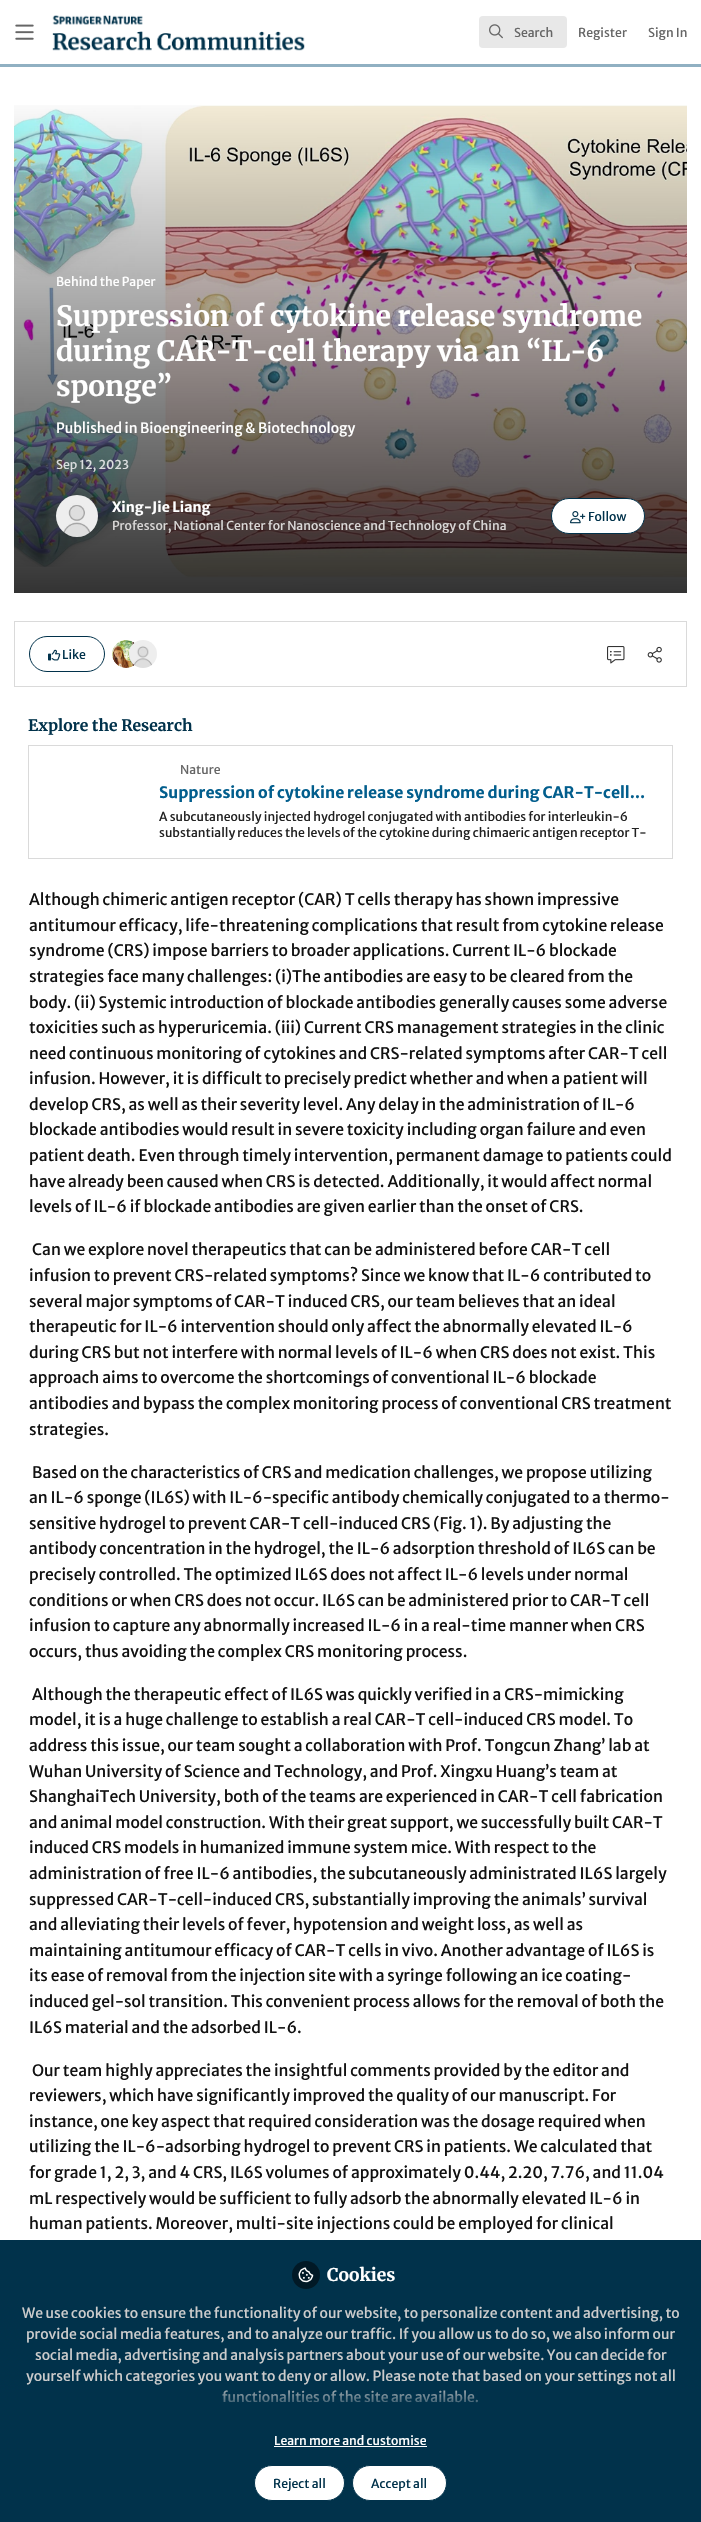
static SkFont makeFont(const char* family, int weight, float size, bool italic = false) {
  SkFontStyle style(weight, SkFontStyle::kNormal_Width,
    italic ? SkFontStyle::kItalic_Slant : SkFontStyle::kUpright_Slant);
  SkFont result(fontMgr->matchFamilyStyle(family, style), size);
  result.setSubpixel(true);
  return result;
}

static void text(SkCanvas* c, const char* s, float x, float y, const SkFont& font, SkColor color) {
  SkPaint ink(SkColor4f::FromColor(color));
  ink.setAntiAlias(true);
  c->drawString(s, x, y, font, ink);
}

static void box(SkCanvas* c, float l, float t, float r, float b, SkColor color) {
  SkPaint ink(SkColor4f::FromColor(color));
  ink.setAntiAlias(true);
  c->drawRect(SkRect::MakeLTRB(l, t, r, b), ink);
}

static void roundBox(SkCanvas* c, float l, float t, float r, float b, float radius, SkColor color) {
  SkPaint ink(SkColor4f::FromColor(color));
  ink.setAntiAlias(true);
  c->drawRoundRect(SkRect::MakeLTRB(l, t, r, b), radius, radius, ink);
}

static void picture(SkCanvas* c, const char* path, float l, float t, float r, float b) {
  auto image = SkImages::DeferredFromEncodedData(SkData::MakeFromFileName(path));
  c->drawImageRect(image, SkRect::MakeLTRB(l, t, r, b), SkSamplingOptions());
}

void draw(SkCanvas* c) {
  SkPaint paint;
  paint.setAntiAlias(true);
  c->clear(0xffffffff);
  box(c, 0, 64, 701, 67, 0xff90b0c2);
  picture(c, "img_01.png", 15, 24, 34, 40);
  picture(c, "img_02.png", 52, 15, 305, 51);
  roundBox(c, 479, 16, 567, 48, 4, 0xffe8e8e8);
  picture(c, "img_03.png", 489, 24, 503, 39);
  SkFont face1 = makeFont("Merriweather Sans", 400, 12.25f);
  text(c, "Search", 514, 37, face1, 0xff666666);
  text(c, "Register", 578, 37, face1, 0xff666666);
  text(c, "Sign In", 648, 37, face1, 0xff666666);
  picture(c, "img_04.png", 14, 92, 687, 593);
  {
    const SkColor colors[] = {0x00000000, 0xcc000000};
    const float stops[] = {0, 1};
    const SkPoint ends[] = {{350, 92}, {351, 593}};
    paint.setShader(SkGradientShader::MakeLinear(ends, colors, stops, 2, SkTileMode::kClamp));
    paint.setAlpha(255);
  }
  c->drawRect(SkRect::MakeLTRB(14, 105, 687, 593), paint);
  text(c, "Behind the Paper", 56, 286, face1, 0xffffffff);
  SkFont face2 = makeFont("Merriweather", 700, 28);
  text(c, "Suppression of cytokine release syndrome", 56, 326, face2, 0xffffffff);
  text(c, "during CAR-T-cell therapy via an “IL-6", 56, 361, face2, 0xffffffff);
  text(c, "sponge”", 56, 396, face2, 0xffffffff);
  SkFont face3 = makeFont("Merriweather Sans", 400, 14);
  text(c, "Published in Bioengineering & Biotechnology", 56, 433, face3, 0xffffffff);
  text(c, "Sep 12, 2023", 56, 469, face1, 0xffdbdedf);
  picture(c, "img_05.png", 56, 495, 98, 537);
  SkFont face4 = makeFont("Merriweather Sans", 700, 14);
  text(c, "Xing-Jie Liang", 112, 512, face4, 0xffffffff);
  text(c, "Professor, National Center for Nanoscience and Technology of China", 112, 530, face1, 0xffdad8d7);
  paint.setShader(nullptr);
  paint.setColor(0xffffffff);
  c->drawRoundRect(SkRect::MakeLTRB(551.5f, 498.5f, 644.5f, 533.5f), 17.5f, 17.5f, paint);
  paint.setStyle(SkPaint::kStroke_Style);
  paint.setStrokeWidth(1);
  paint.setColor(0xff01324b);
  c->drawRoundRect(SkRect::MakeLTRB(551.5f, 498.5f, 644.5f, 533.5f), 17.5f, 17.5f, paint);
  picture(c, "img_06.png", 570, 511, 586, 524);
  text(c, "Follow", 588, 521, face1, 0xff01324b);
  paint.setColor(0xffdadada);
  c->drawRect(SkRect::MakeLTRB(14.5f, 621.5f, 686.5f, 686.5f), paint);
  paint.setColor(0xff01324b);
  c->drawRoundRect(SkRect::MakeLTRB(29.5f, 636.5f, 104.5f, 671.5f), 17.5f, 17.5f, paint);
  picture(c, "img_07.png", 48, 649, 61, 661);
  text(c, "Like", 62, 659, face1, 0xff01324b);
  picture(c, "img_08.png", 112, 640, 135, 668);
  picture(c, "img_09.png", 129, 640, 157, 668);
  picture(c, "img_10.png", 607, 646, 625, 664);
  picture(c, "img_11.png", 647, 646, 662, 663);
  SkFont face5 = makeFont("Merriweather", 700, 15.75f);
  text(c, "Explore the Research", 28, 731, face5, 0xff01324b);
  paint.setColor(0xffdadada);
  c->drawRect(SkRect::MakeLTRB(28.5f, 745.5f, 672.5f, 858.5f), paint);
  text(c, "Nature", 180, 774, face1, 0xff666666);
  SkFont face6 = makeFont("Merriweather Sans", 700, 15.75f);
  text(c, "Suppression of cytokine release syndrome during CAR-T-cell…", 159, 798, face6, 0xff025e8d);
  text(c, "A subcutaneously injected hydrogel conjugated with antibodies for interleukin-6", 159, 821, face1, 0xff222222);
  text(c, "substantially reduces the levels of the cytokine during chimaeric antigen receptor T-", 159, 837, face1, 0xff222222);
  SkFont face7 = makeFont("Merriweather Sans", 400, 15.75f);
  text(c, "Although chimeric antigen receptor (CAR) T cells therapy has shown impressive", 29, 905, face7, 0xff111111);
  text(c, "antitumour efficacy, life-threatening complications that result from cytokine release", 29, 931, face7, 0xff111111);
  text(c, "syndrome (CRS) impose barriers to broader applications. Current IL-6 blockade", 29, 956, face7, 0xff111111);
  text(c, "strategies face many challenges: (i)The antibodies are easy to be cleared from the", 29, 982, face7, 0xff111111);
  text(c, "body. (ii) Systemic introduction of blockade antibodies generally causes some adverse", 29, 1008, face7, 0xff111111);
  text(c, "toxicities such as hyperuricemia. (iii) Current CRS management strategies in the clinic", 29, 1033, face7, 0xff111111);
  text(c, "need continuous monitoring of cytokines and CRS-related symptoms after CAR-T cell", 29, 1059, face7, 0xff111111);
  text(c, "infusion. However, it is difficult to precisely predict whether and when a patient will", 29, 1084, face7, 0xff111111);
  text(c, "develop CRS, as well as their severity level. Any delay in the administration of IL-6", 29, 1110, face7, 0xff111111);
  text(c, "blockade antibodies would result in severe toxicity including organ failure and even", 29, 1135, face7, 0xff111111);
  text(c, "patient death. Even through timely intervention, permanent damage to patients could", 29, 1161, face7, 0xff111111);
  text(c, "have already been caused when CRS is detected. Additionally, it would affect normal", 29, 1187, face7, 0xff111111);
  text(c, "levels of IL-6 if blockade antibodies are given earlier than the onset of CRS.", 29, 1212, face7, 0xff111111);
  text(c, "Can we explore novel therapeutics that can be administered before CAR-T cell", 32, 1255, face7, 0xff111111);
  text(c, "infusion to prevent CRS-related symptoms? Since we know that IL-6 contributed to", 29, 1281, face7, 0xff111111);
  text(c, "several major symptoms of CAR-T induced CRS, our team believes that an ideal", 29, 1307, face7, 0xff111111);
  text(c, "therapeutic for IL-6 intervention should only affect the abnormally elevated IL-6", 29, 1332, face7, 0xff111111);
  text(c, "during CRS but not interfere with normal levels of IL-6 when CRS does not exist. This", 29, 1358, face7, 0xff111111);
  text(c, "approach aims to overcome the shortcomings of conventional IL-6 blockade", 29, 1383, face7, 0xff111111);
  text(c, "antibodies and bypass the complex monitoring process of conventional CRS treatment", 29, 1409, face7, 0xff111111);
  text(c, "strategies.", 29, 1435, face7, 0xff111111);
  text(c, "Based on the characteristics of CRS and medication challenges, we propose utilizing", 32, 1478, face7, 0xff111111);
  text(c, "an IL-6 sponge (IL6S) with IL-6-specific antibody chemically conjugated to a thermo-", 29, 1503, face7, 0xff111111);
  text(c, "sensitive hydrogel to prevent CAR-T cell-induced CRS (Fig. 1). By adjusting the", 29, 1529, face7, 0xff111111);
  text(c, "antibody concentration in the hydrogel, the IL-6 adsorption threshold of IL6S can be", 29, 1554, face7, 0xff111111);
  text(c, "precisely controlled. The optimized IL6S does not affect IL-6 levels under normal", 29, 1580, face7, 0xff111111);
  text(c, "conditions or when CRS does not occur. IL6S can be administered prior to CAR-T cell", 29, 1606, face7, 0xff111111);
  text(c, "infusion to capture any abnormally increased IL-6 in a real-time manner when CRS", 29, 1631, face7, 0xff111111);
  text(c, "occurs, thus avoiding the complex CRS monitoring process.", 29, 1657, face7, 0xff111111);
  text(c, "Although the therapeutic effect of IL6S was quickly verified in a CRS-mimicking", 32, 1700, face7, 0xff111111);
  text(c, "model, it is a huge challenge to establish a real CAR-T cell-induced CRS model. To", 29, 1725, face7, 0xff111111);
  text(c, "address this issue, our team sought a collaboration with Prof. Tongcun Zhang’ lab at", 29, 1751, face7, 0xff111111);
  text(c, "Wuhan University of Science and Technology, and Prof. Xingxu Huang’s team at", 29, 1777, face7, 0xff111111);
  text(c, "ShanghaiTech University, both of the teams are experienced in CAR-T cell fabrication", 29, 1802, face7, 0xff111111);
  text(c, "and animal model construction. With their great support, we successfully built CAR-T", 29, 1828, face7, 0xff111111);
  text(c, "induced CRS models in humanized immune system mice. With respect to the", 29, 1853, face7, 0xff111111);
  text(c, "administration of free IL-6 antibodies, the subcutaneously administrated IL6S largely", 29, 1879, face7, 0xff111111);
  text(c, "suppressed CAR-T-cell-induced CRS, substantially improving the animals’ survival", 29, 1905, face7, 0xff111111);
  text(c, "and alleviating their levels of fever, hypotension and weight loss, as well as", 29, 1930, face7, 0xff111111);
  text(c, "maintaining antitumour efficacy of CAR-T cells in vivo. Another advantage of IL6S is", 29, 1956, face7, 0xff111111);
  text(c, "its ease of removal from the injection site with a syringe following an ice coating-", 29, 1981, face7, 0xff111111);
  text(c, "induced gel-sol transition. This convenient process allows for the removal of both the", 29, 2007, face7, 0xff111111);
  text(c, "IL6S material and the adsorbed IL-6.", 29, 2033, face7, 0xff111111);
  text(c, "Our team highly appreciates the insightful comments provided by the editor and", 32, 2076, face7, 0xff111111);
  text(c, "reviewers, which have significantly improved the quality of our manuscript. For", 29, 2101, face7, 0xff111111);
  text(c, "instance, one key aspect that required consideration was the dosage required when", 29, 2127, face7, 0xff111111);
  text(c, "utilizing the IL-6-adsorbing hydrogel to prevent CRS in patients. We calculated that", 29, 2152, face7, 0xff111111);
  text(c, "for grade 1, 2, 3, and 4 CRS, IL6S volumes of approximately 0.44, 2.20, 7.76, and 11.04", 29, 2178, face7, 0xff111111);
  text(c, "mL respectively would be sufficient to fully adsorb the abnormally elevated IL-6 in", 29, 2204, face7, 0xff111111);
  text(c, "human patients. Moreover, multi-site injections could be employed for clinical", 29, 2229, face7, 0xff111111);
  box(c, 0, 2240, 701, 2522, 0xff01324b);
  paint.setStyle(SkPaint::kFill_Style);
  paint.setColor(0xff011926);
  c->drawCircle(306, 2275, 14, paint);
  picture(c, "img_12.png", 298, 2267, 314, 2283);
  SkFont face8 = makeFont("Merriweather", 700, 17.5f);
  text(c, "Cookies", 327, 2281, face8, 0xffffffff);
  text(c, "We use cookies to ensure the functionality of our website, to personalize content and advertising, to", 22, 2318, face3, 0xffcccccc);
  text(c, "provide social media features, and to analyze our traffic. If you allow us to do so, we also inform our", 26, 2339, face3, 0xffcccccc);
  text(c, "social media, advertising and analysis partners about your use of our website. You can decide for", 35, 2360, face3, 0xffcccccc);
  text(c, "yourself which categories you want to deny or allow. Please note that based on your settings not all", 26, 2381, face3, 0xffcccccc);
  text(c, "functionalities of the site are available.", 222, 2402, face3, 0xffcccccc);
  {
    const SkColor colors[] = {0xff01324b, 0x0001324b};
    const float stops[] = {0, 1};
    const SkPoint ends[] = {{351, 2412}, {351, 2384}};
    paint.setShader(SkGradientShader::MakeLinear(ends, colors, stops, 2, SkTileMode::kClamp));
    paint.setAlpha(255);
  }
  c->drawRect(SkRect::MakeLTRB(222, 2390, 478, 2403), paint);
  text(c, "Learn more and customise", 274, 2445, face1, 0xffffffff);
  box(c, 274, 2446, 427, 2447, 0xffffffff);
  paint.setShader(nullptr);
  paint.setColor(0xffffffff);
  c->drawRoundRect(SkRect::MakeLTRB(254.5f, 2465.5f, 344.5f, 2500.5f), 17.5f, 17.5f, paint);
  paint.setStyle(SkPaint::kStroke_Style);
  paint.setColor(0xff01324b);
  c->drawRoundRect(SkRect::MakeLTRB(254.5f, 2465.5f, 344.5f, 2500.5f), 17.5f, 17.5f, paint);
  text(c, "Reject all", 273, 2488, face1, 0xff01324b);
  paint.setStyle(SkPaint::kFill_Style);
  paint.setColor(0xffffffff);
  c->drawRoundRect(SkRect::MakeLTRB(352.5f, 2465.5f, 446.5f, 2500.5f), 17.5f, 17.5f, paint);
  paint.setStyle(SkPaint::kStroke_Style);
  paint.setColor(0xff01324b);
  c->drawRoundRect(SkRect::MakeLTRB(352.5f, 2465.5f, 446.5f, 2500.5f), 17.5f, 17.5f, paint);
  text(c, "Accept all", 371, 2488, face1, 0xff01324b);
}
